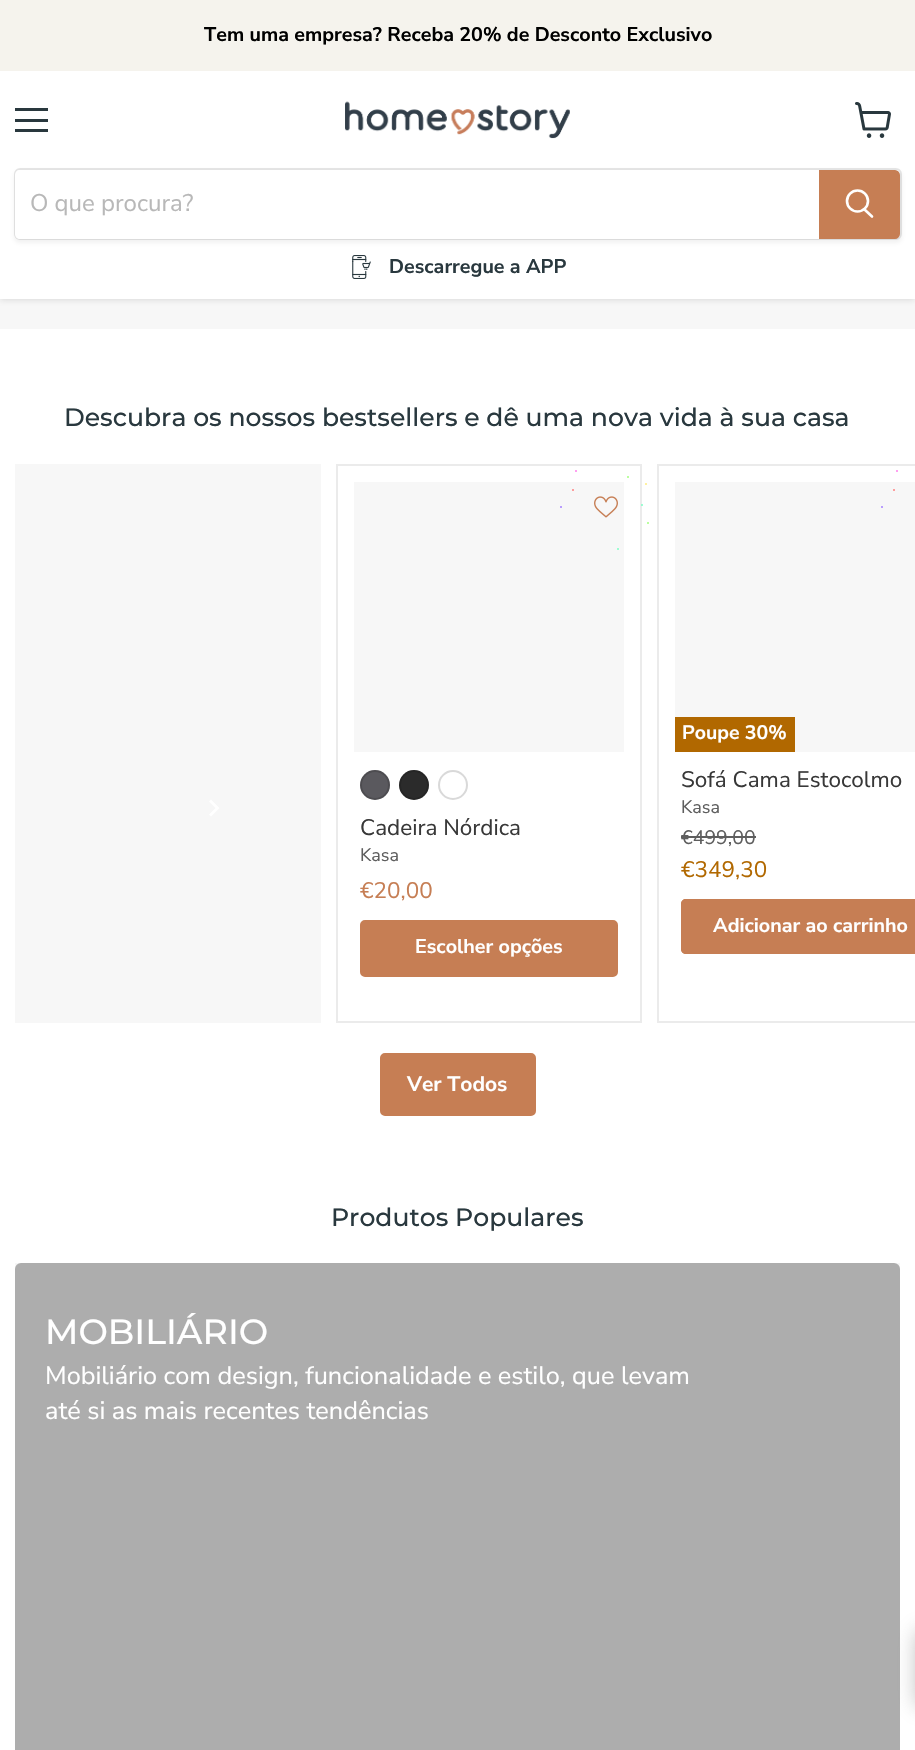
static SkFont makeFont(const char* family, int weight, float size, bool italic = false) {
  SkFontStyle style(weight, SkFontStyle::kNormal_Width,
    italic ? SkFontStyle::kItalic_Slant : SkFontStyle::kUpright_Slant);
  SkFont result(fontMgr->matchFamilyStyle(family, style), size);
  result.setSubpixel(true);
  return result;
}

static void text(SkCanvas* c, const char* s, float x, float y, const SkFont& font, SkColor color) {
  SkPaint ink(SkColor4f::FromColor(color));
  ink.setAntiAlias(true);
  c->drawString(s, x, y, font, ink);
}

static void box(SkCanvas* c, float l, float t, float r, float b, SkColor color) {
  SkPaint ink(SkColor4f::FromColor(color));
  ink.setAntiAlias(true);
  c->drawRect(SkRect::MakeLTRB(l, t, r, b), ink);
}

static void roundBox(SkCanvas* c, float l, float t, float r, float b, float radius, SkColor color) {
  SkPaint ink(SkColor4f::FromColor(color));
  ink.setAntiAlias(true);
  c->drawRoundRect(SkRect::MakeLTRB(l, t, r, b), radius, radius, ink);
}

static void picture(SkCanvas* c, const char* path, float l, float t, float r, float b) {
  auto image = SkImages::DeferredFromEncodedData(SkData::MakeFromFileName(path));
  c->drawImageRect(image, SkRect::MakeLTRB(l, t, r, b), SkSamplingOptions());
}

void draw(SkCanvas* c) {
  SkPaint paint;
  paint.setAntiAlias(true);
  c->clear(0xffffffff);
  box(c, 0, 299, 915, 329, 0xfff7f7f7);
  paint.setColor(0x40808080);
  paint.setMaskFilter(SkMaskFilter::MakeBlur(kNormal_SkBlurStyle, 3));
  c->drawRect(SkRect::MakeLTRB(0, 72, 915, 300), paint);
  paint.setMaskFilter(nullptr);
  box(c, 0, 0, 915, 71, 0xfff5f3ed);
  SkFont face1 = makeFont("Nunito Sans", 700, 19.7f);
  text(c, "Tem uma empresa? Receba 20% de Desconto Exclusivo", 204, 41, face1, 0xff000000);
  box(c, 0, 71, 915, 299, 0xffffffff);
  box(c, 15, 108, 48, 111, 0xff29383e);
  box(c, 15, 119, 48, 122, 0xff29383e);
  box(c, 15, 129, 48, 132, 0xff29383e);
  picture(c, "img_01.png", 855, 102, 891, 138);
  picture(c, "img_02.png", 345, 101, 570, 139);
  paint.setColor(0x1c808080);
  paint.setMaskFilter(SkMaskFilter::MakeBlur(kNormal_SkBlurStyle, 2));
  c->drawRoundRect(SkRect::MakeLTRB(14, 171, 902, 243), 6, 6, paint);
  paint.setMaskFilter(nullptr);
  paint.setStyle(SkPaint::kStroke_Style);
  paint.setStrokeWidth(2);
  paint.setColor(0x33808080);
  c->drawRoundRect(SkRect::MakeLTRB(15, 169, 901, 239), 5, 5, paint);
  paint.setStyle(SkPaint::kFill_Style);
  paint.setColor(0xffffffff);
  c->drawPath(SkPathBuilder().moveTo(20, 170).lineTo(819, 170).lineTo(819, 239).lineTo(20, 239).cubicTo(17, 239, 15, 237, 15, 234).lineTo(15, 175).cubicTo(15, 172, 17, 170, 20, 170).close().detach(), paint);
  SkFont face2 = makeFont("Nunito Sans", 400, 24);
  text(c, "O que procura?", 30, 211, face2, 0xffb8b8b8);
  paint.setColor(0xffc67e54);
  c->drawPath(SkPathBuilder().moveTo(820, 171).lineTo(895, 171).cubicTo(897, 171, 899, 173, 899, 175).lineTo(899, 234).cubicTo(899, 236, 897, 238, 895, 238).lineTo(820, 238).close().detach(), paint);
  paint.setStyle(SkPaint::kStroke_Style);
  c->drawPath(SkPathBuilder().moveTo(820, 171).lineTo(895, 171).cubicTo(897, 171, 899, 173, 899, 175).lineTo(899, 234).cubicTo(899, 236, 897, 238, 895, 238).lineTo(820, 238).close().detach(), paint);
  paint.setStrokeWidth(2.6f);
  paint.setStrokeCap(SkPaint::kRound_Cap);
  paint.setColor(0xffffffff);
  c->drawPath(SkPathBuilder().moveTo(872, 216.5f).lineTo(864.5f, 209.5f).detach(), paint);
  paint.setStrokeCap(SkPaint::kButt_Cap);
  c->drawCircle(857.5f, 201, 10.5f, paint);
  picture(c, "img_03.png", 352, 255, 371, 279);
  text(c, "Descarregue a APP", 389, 273, face1, 0xff29383e);
  SkFont face3 = makeFont("Montserrat", 500, 25.1f);
  text(c, "Descubra os nossos bestsellers e dê uma nova vida à sua casa", 64, 426, face3, 0xff29383e);
  box(c, 15, 464, 321, 1023, 0xfff7f7f7);
  paint.setStyle(SkPaint::kFill_Style);
  c->drawPath(SkPathBuilder(SkPathFillType::kEvenOdd).moveTo(215.5f, 808).lineTo(209, 801.5f).lineTo(211, 799.5f).lineTo(219.5f, 808).lineTo(211, 816.5f).lineTo(209, 814.5f).close().detach(), paint);
  paint.setStyle(SkPaint::kStroke_Style);
  paint.setStrokeWidth(2);
  paint.setColor(0xffebebeb);
  c->drawRect(SkRect::MakeLTRB(337, 465, 641, 1022), paint);
  box(c, 354, 482, 624, 752, 0xfff7f7f7);
  paint.setStyle(SkPaint::kFill_Style);
  paint.setColor(0xffff8080);
  c->drawCircle(573, 490, 1, paint);
  paint.setColor(0xffff80ed);
  c->drawCircle(576, 471, 1, paint);
  paint.setColor(0xffa480ff);
  c->drawCircle(561, 507, 1, paint);
  paint.setColor(0xff80ffc8);
  c->drawCircle(618, 549, 1, paint);
  c->drawCircle(642, 505, 1, paint);
  paint.setColor(0xffa4ff80);
  c->drawCircle(648, 523, 1, paint);
  c->drawCircle(628, 477, 1, paint);
  paint.setColor(0xffffed80);
  c->drawCircle(646, 484, 1, paint);
  picture(c, "img_04.png", 594, 496, 618, 518);
  paint.setColor(0xff5a595e);
  c->drawCircle(375, 785, 15, paint);
  paint.setStyle(SkPaint::kStroke_Style);
  paint.setColor(0x26000000);
  c->drawCircle(375, 785, 14, paint);
  paint.setStyle(SkPaint::kFill_Style);
  paint.setColor(0xff2b2b2b);
  c->drawCircle(414, 785, 15, paint);
  paint.setStyle(SkPaint::kStroke_Style);
  paint.setColor(0x26000000);
  c->drawCircle(414, 785, 14, paint);
  paint.setColor(0xffd9d9d9);
  c->drawCircle(453, 785, 14, paint);
  SkFont face4 = makeFont("Nunito Sans", 400, 22.5f);
  text(c, "Cadeira Nórdica", 360, 835, face4, 0xff383838);
  SkFont face5 = makeFont("Nunito Sans", 400, 18);
  text(c, "Kasa", 360, 861, face5, 0xff5e5e5e);
  text(c, "€20,00", 360, 898, face4, 0xffc67e54);
  paint.setStyle(SkPaint::kFill_Style);
  paint.setColor(0xffc67e54);
  c->drawRoundRect(SkRect::MakeLTRB(361, 921, 617, 976), 4, 4, paint);
  paint.setStyle(SkPaint::kStroke_Style);
  c->drawRoundRect(SkRect::MakeLTRB(361, 921, 617, 976), 4, 4, paint);
  text(c, "Escolher opções", 415, 953, face1, 0xffffffff);
  paint.setColor(0xffebebeb);
  c->drawRect(SkRect::MakeLTRB(658, 465, 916, 1022), paint);
  box(c, 675, 482, 915, 752, 0xfff7f7f7);
  paint.setStyle(SkPaint::kFill_Style);
  paint.setColor(0xffff8080);
  c->drawCircle(894, 490, 1, paint);
  paint.setColor(0xffff80ed);
  c->drawCircle(897, 471, 1, paint);
  paint.setColor(0xffa480ff);
  c->drawCircle(882, 507, 1, paint);
  box(c, 675, 717, 795, 752, 0xffb16800);
  SkFont face6 = makeFont("Nunito Sans", 700, 19.5f);
  text(c, "Poupe 30%", 682, 739, face6, 0xffffffff);
  text(c, "Sofá Cama Estocolmo", 681, 787, face4, 0xff383838);
  text(c, "Kasa", 681, 813, face5, 0xff5e5e5e);
  SkFont face7 = makeFont("Nunito Sans", 400, 19.5f);
  text(c, "€499,00", 681, 844, face7, 0xff5e5e5e);
  box(c, 681, 836, 756, 838, 0xff5e5e5e);
  text(c, "€349,30", 681, 877, face4, 0xffb16800);
  paint.setColor(0xffc67e54);
  c->drawPath(SkPathBuilder().moveTo(686, 899).lineTo(915, 899).lineTo(915, 954).lineTo(686, 954).cubicTo(683, 954, 681, 952, 681, 949).lineTo(681, 904).cubicTo(681, 901, 683, 899, 686, 899).close().detach(), paint);
  paint.setStyle(SkPaint::kStroke_Style);
  c->drawRoundRect(SkRect::MakeLTRB(682, 900, 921, 953), 4, 4, paint);
  text(c, "Adicionar ao carrinho", 713, 932, face1, 0xffffffff);
  paint.setStyle(SkPaint::kFill_Style);
  c->drawRoundRect(SkRect::MakeLTRB(381, 1054, 535, 1115), 4, 4, paint);
  paint.setStyle(SkPaint::kStroke_Style);
  c->drawRoundRect(SkRect::MakeLTRB(381, 1054, 535, 1115), 4, 4, paint);
  SkFont face8 = makeFont("Nunito Sans", 700, 21);
  text(c, "Ver Todos", 407, 1091, face8, 0xffffffff);
  text(c, "Produtos Populares", 331, 1226, face3, 0xff29383e);
  box(c, 15, 1263, 900, 1269, 0xfff7f7f7);
  roundBox(c, 15, 1263, 900, 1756, 6, 0xffadadad);
  SkFont face9 = makeFont("Montserrat", 500, 35);
  text(c, "MOBILIÁRIO", 45, 1344, face9, 0xffffffff);
  SkFont face10 = makeFont("Nunito Sans", 400, 25.3f);
  text(c, "Mobiliário com design, funcionalidade e estilo, que levam", 45, 1384, face10, 0xffffffff);
  text(c, "até si as mais recentes tendências", 45, 1419, face10, 0xffffffff);
  paint.setStyle(SkPaint::kFill_Style);
  paint.setColor(0x80757575);
  paint.setMaskFilter(SkMaskFilter::MakeBlur(kNormal_SkBlurStyle, 10.5f));
  c->drawRect(SkRect::MakeLTRB(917, 1631, 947, 1706), paint);
  paint.setMaskFilter(nullptr);
}
